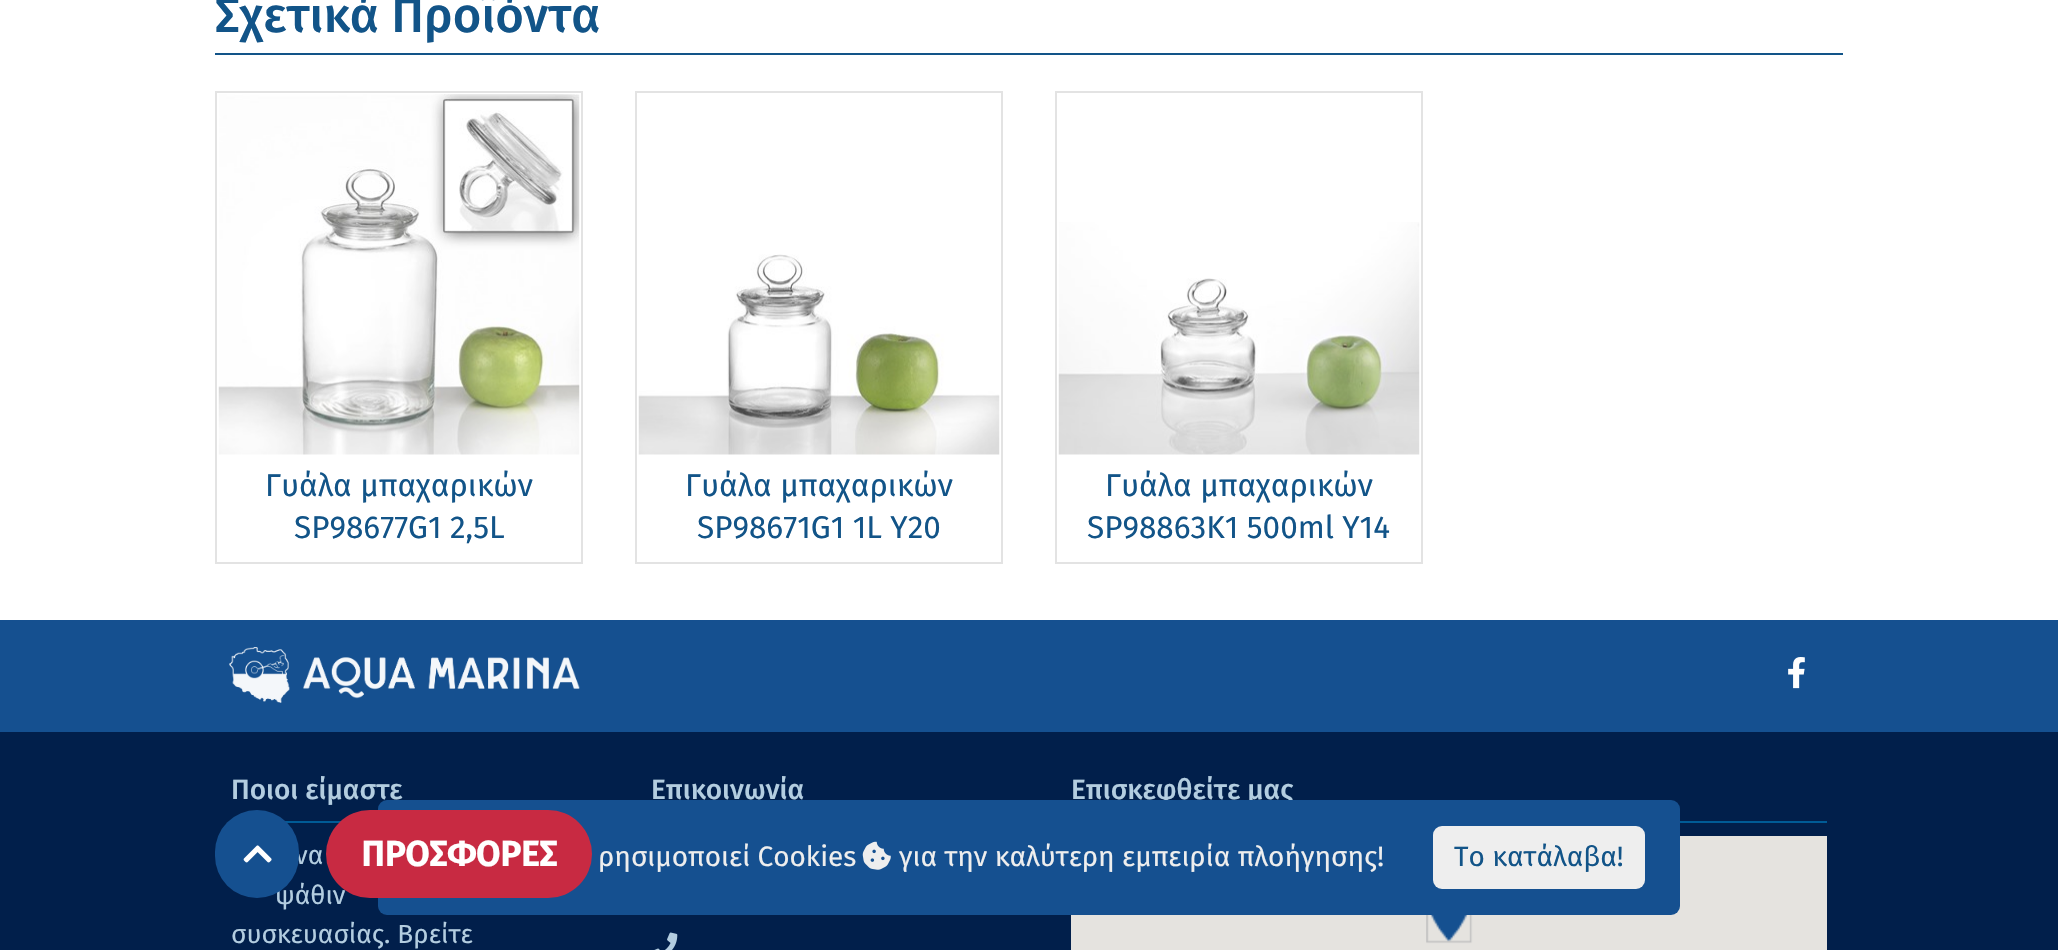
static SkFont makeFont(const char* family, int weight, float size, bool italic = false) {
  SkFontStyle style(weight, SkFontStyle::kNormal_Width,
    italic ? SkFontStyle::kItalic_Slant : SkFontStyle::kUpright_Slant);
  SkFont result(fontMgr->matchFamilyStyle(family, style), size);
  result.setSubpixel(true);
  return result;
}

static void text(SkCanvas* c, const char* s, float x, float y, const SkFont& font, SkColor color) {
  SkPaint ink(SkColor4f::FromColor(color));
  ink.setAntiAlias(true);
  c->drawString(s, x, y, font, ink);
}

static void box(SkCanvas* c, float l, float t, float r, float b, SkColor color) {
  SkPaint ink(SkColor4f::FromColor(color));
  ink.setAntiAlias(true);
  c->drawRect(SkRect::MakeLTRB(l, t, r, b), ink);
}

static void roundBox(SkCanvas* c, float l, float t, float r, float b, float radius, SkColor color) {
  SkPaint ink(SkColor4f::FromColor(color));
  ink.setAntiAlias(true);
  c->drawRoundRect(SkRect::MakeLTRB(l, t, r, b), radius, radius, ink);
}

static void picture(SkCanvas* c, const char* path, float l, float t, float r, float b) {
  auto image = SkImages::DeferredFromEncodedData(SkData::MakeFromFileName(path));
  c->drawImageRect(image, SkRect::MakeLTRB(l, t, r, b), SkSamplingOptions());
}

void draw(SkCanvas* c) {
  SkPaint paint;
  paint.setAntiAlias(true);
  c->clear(0xffffffff);
  box(c, 215, 53, 1843, 55, 0xff125488);
  SkFont face1 = makeFont("Fira Sans", 500, 49);
  text(c, "Σχετικά Προϊόντα", 215, 32, face1, 0xff125488);
  paint.setStyle(SkPaint::kStroke_Style);
  paint.setStrokeWidth(2);
  paint.setColor(0xffe3e3e3);
  c->drawRect(SkRect::MakeLTRB(216, 92, 582, 563), paint);
  picture(c, "img_01.png", 218, 94, 580, 455);
  SkFont face2 = makeFont("Fira Sans", 400, 31.5f);
  text(c, "Γυάλα μπαχαρικών", 265, 496, face2, 0xff125488);
  text(c, "SP98677G1 2,5L", 294, 538, face2, 0xff125488);
  c->drawRect(SkRect::MakeLTRB(636, 92, 1002, 563), paint);
  picture(c, "img_02.png", 638, 254, 1000, 455);
  text(c, "Γυάλα μπαχαρικών", 685, 496, face2, 0xff125488);
  text(c, "SP98671G1 1L Υ20", 697, 538, face2, 0xff125488);
  c->drawRect(SkRect::MakeLTRB(1056, 92, 1422, 563), paint);
  picture(c, "img_03.png", 1058, 222, 1420, 455);
  text(c, "Γυάλα μπαχαρικών", 1105, 496, face2, 0xff125488);
  text(c, "SP98863K1 500ml Υ14", 1087, 538, face2, 0xff125488);
  box(c, 0, 732, 2058, 950, 0xff011f4b);
  box(c, 0, 620, 2058, 732, 0xff155090);
  picture(c, "img_04.png", 229, 647, 580, 703);
  picture(c, "img_05.png", 1788, 657, 1805, 689);
  box(c, 285, 821, 341, 823, 0xff005b96);
  SkFont face3 = makeFont("Fira Sans", 500, 28);
  text(c, "Ποιοι είμαστε", 231, 799, face3, 0xffb3cde0);
  SkFont face4 = makeFont("Fira Sans", 400, 26.25f);
  text(c, "να", 295, 864, face4, 0xffb3cde0);
  text(c, "ψάθιν", 275, 904, face4, 0xffb3cde0);
  text(c, "συσκευασίας. Βρείτε", 231, 943, face4, 0xffb3cde0);
  text(c, "Επικοινωνία", 651, 799, face3, 0xffb3cde0);
  picture(c, "img_06.png", 654, 932, 678, 950);
  box(c, 1680, 821, 1827, 823, 0xff005b96);
  text(c, "Επισκεφθείτε μας", 1071, 799, face3, 0xffb3cde0);
  picture(c, "img_07.png", 1071, 836, 1827, 950);
  roundBox(c, 215, 810, 299, 898, 42, 0xff155090);
  picture(c, "img_08.png", 243, 845, 272, 863);
  roundBox(c, 378, 800, 1680, 915, 9, 0xff155090);
  roundBox(c, 326, 810, 592, 898, 44, 0xffc82a42);
  SkFont face5 = makeFont("Fira Sans", 700, 35);
  text(c, "ΠΡΟΣΦΟΡΕΣ", 361, 866, face5, 0xffffffff);
  SkFont face6 = makeFont("Fira Sans", 400, 28);
  text(c, "ρησιμοποιεί Cookies", 598, 866, face6, 0xffeeeeee);
  picture(c, "img_09.png", 862, 841, 891, 870);
  text(c, "για την καλύτερη εμπειρία πλοήγησης!", 899, 866, face6, 0xffeeeeee);
  roundBox(c, 1433, 826, 1645, 889, 9, 0xffeeeeee);
  text(c, "Το κατάλαβα!", 1454, 866, face6, 0xff125488);
}
